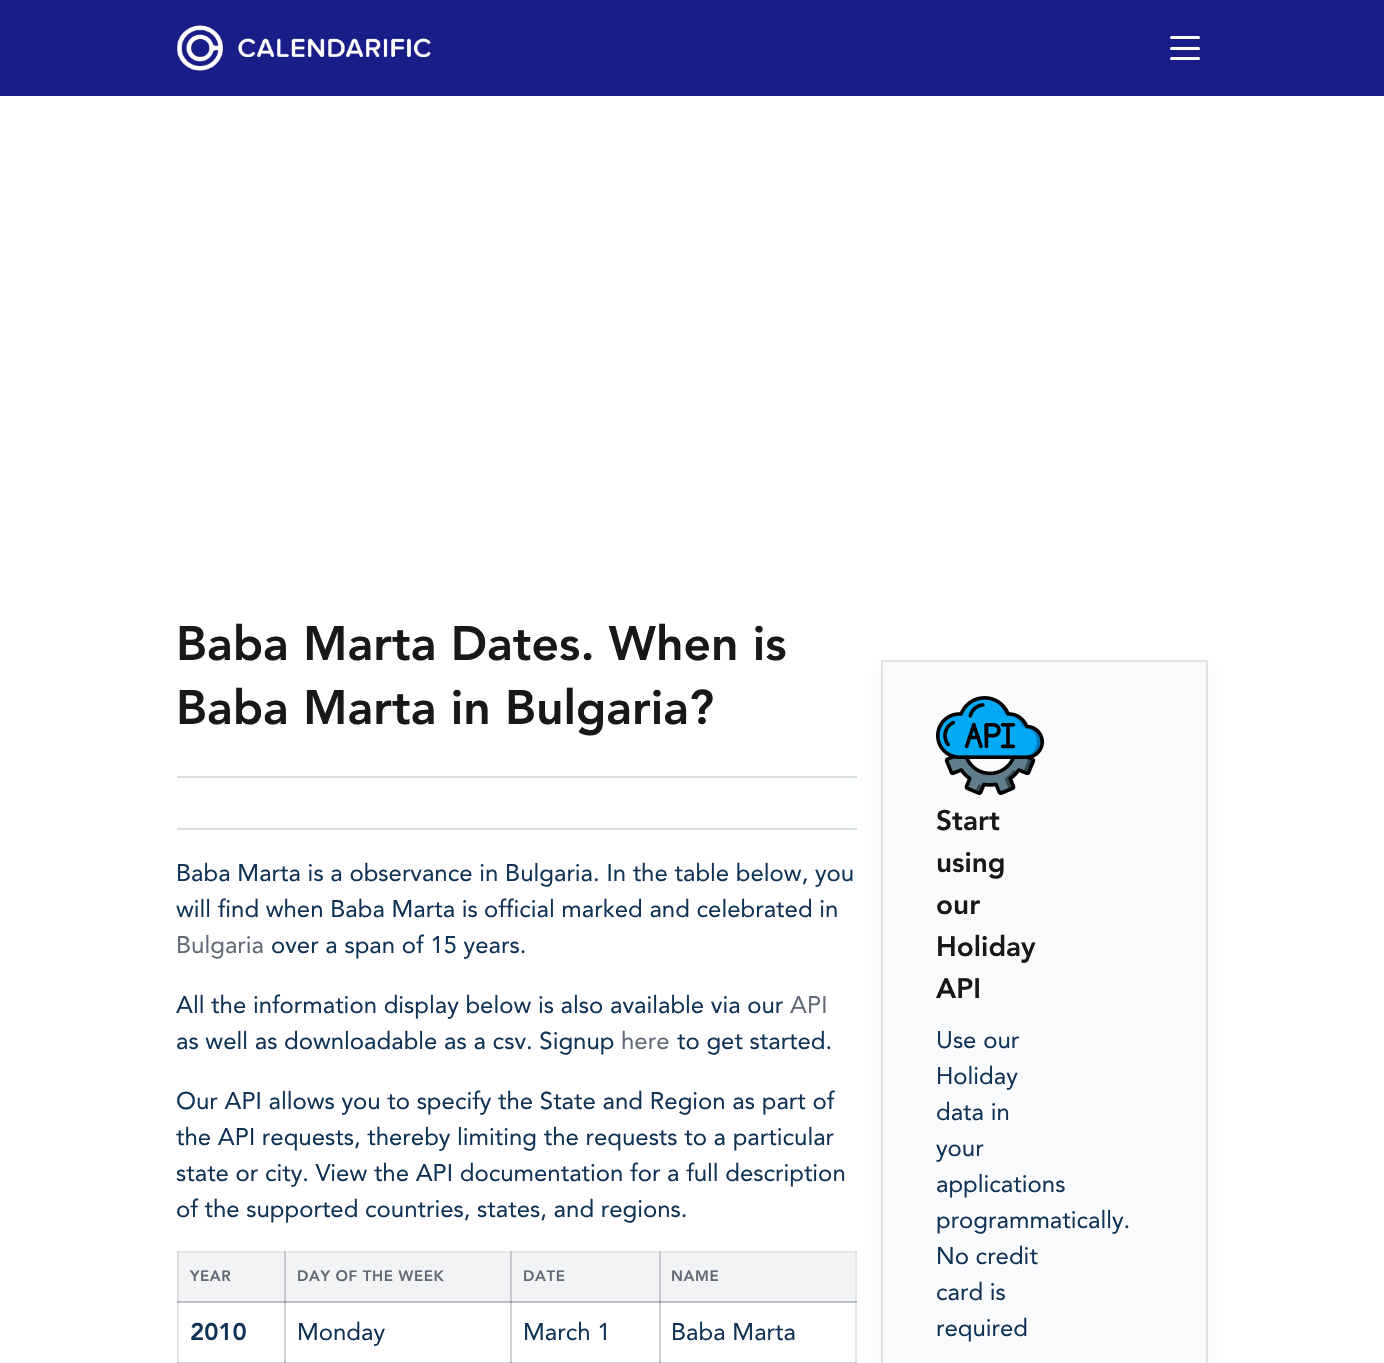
static SkFont makeFont(const char* family, int weight, float size, bool italic = false) {
  SkFontStyle style(weight, SkFontStyle::kNormal_Width,
    italic ? SkFontStyle::kItalic_Slant : SkFontStyle::kUpright_Slant);
  SkFont result(fontMgr->matchFamilyStyle(family, style), size);
  result.setSubpixel(true);
  return result;
}

static void text(SkCanvas* c, const char* s, float x, float y, const SkFont& font, SkColor color) {
  SkPaint ink(SkColor4f::FromColor(color));
  ink.setAntiAlias(true);
  c->drawString(s, x, y, font, ink);
}

static void spacedText(SkCanvas* c, const char* s, float x, float y, const SkFont& font, const SkPaint& ink, float letter, float word) {
  std::vector<SkGlyphID> glyphs(font.countText(s, strlen(s), SkTextEncoding::kUTF8));
  std::vector<float> xs(glyphs.size());
  font.textToGlyphs(s, strlen(s), SkTextEncoding::kUTF8, glyphs);
  font.getXPos(glyphs, xs, x);
  float extra = 0;
  for (size_t i = 0; i < glyphs.size(); i++) {
    xs[i] += extra;
    extra += letter + word * (glyphs[i] == font.unicharToGlyph(' '));
  }
  c->drawTextBlob(SkTextBlob::MakeFromPosHGlyphs(glyphs, xs, y, font), 0, 0, ink);
}

static void box(SkCanvas* c, float l, float t, float r, float b, SkColor color) {
  SkPaint ink(SkColor4f::FromColor(color));
  ink.setAntiAlias(true);
  c->drawRect(SkRect::MakeLTRB(l, t, r, b), ink);
}

static void roundBox(SkCanvas* c, float l, float t, float r, float b, float radius, SkColor color) {
  SkPaint ink(SkColor4f::FromColor(color));
  ink.setAntiAlias(true);
  c->drawRoundRect(SkRect::MakeLTRB(l, t, r, b), radius, radius, ink);
}

static void picture(SkCanvas* c, const char* path, float l, float t, float r, float b) {
  auto image = SkImages::DeferredFromEncodedData(SkData::MakeFromFileName(path));
  c->drawImageRect(image, SkRect::MakeLTRB(l, t, r, b), SkSamplingOptions());
}

void draw(SkCanvas* c) {
  SkPaint paint;
  paint.setAntiAlias(true);
  c->clear(0xffffffff);
  box(c, 855, 1251, 857, 1363, 0xffe6e7e9);
  box(c, 177, 1301, 179, 1363, 0xffe6e7e9);
  box(c, 284, 1301, 286, 1363, 0xffd1d3d7);
  box(c, 510, 1301, 512, 1363, 0xffd1d3d7);
  box(c, 659, 1301, 661, 1363, 0xffd1d3d7);
  box(c, 177, 1302, 857, 1303, 0xffbfc2c7);
  box(c, 177, 1302, 179, 1303, 0xffb0b4ba);
  box(c, 284, 1302, 286, 1303, 0xffa4a8af);
  box(c, 510, 1302, 512, 1303, 0xffa4a8af);
  box(c, 659, 1302, 661, 1303, 0xffa4a8af);
  box(c, 855, 1302, 857, 1303, 0xffb0b4ba);
  box(c, 855, 1301, 857, 1302, 0xffa4a8af);
  box(c, 0, 0, 1384, 96, 0xff191d88);
  picture(c, "img_01.png", 177, 25, 431, 71);
  roundBox(c, 1170, 47, 1200, 50, 1.5f, 0xffffffff);
  picture(c, "img_02.png", 1170, 46, 1200, 48);
  roundBox(c, 1170, 36, 1200, 39, 1.5f, 0xffffffff);
  picture(c, "img_03.png", 1170, 38, 1200, 39);
  roundBox(c, 1170, 57, 1200, 60, 1.5f, 0xffffffff);
  picture(c, "img_03.png", 1170, 59, 1200, 60);
  SkFont face1 = makeFont("Avenir", 900, 48);
  text(c, "Baba Marta Dates. When is", 176, 660, face1, 0xff18181b);
  text(c, "Baba Marta in Bulgaria?", 176, 724, face1, 0xff18181b);
  box(c, 177, 1251, 857, 1253, 0xffe6e7e9);
  box(c, 855, 1251, 857, 1253, 0xffd1d3d7);
  box(c, 661, 1253, 855, 1301, 0xfff2f3f4);
  box(c, 659, 1253, 661, 1302, 0xffc8cacf);
  box(c, 659, 1301, 855, 1302, 0xffb8bac1);
  box(c, 177, 1362, 857, 1363, 0xffd1d3d7);
  box(c, 855, 1362, 857, 1363, 0xffb0b4ba);
  paint.setColor(0x0f05396a);
  paint.setMaskFilter(SkMaskFilter::MakeBlur(kNormal_SkBlurStyle, 11));
  c->drawRect(SkRect::MakeLTRB(881, 672, 1208, 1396), paint);
  paint.setMaskFilter(nullptr);
  box(c, 177, 776, 857, 778, 0xffd9dee4);
  box(c, 177, 828, 857, 830, 0xffd9dee4);
  SkFont face2 = makeFont("Avenir", 400, 24);
  text(c, "Baba Marta is a observance in Bulgaria. In the table below, you", 176, 881, face2, 0xff0f3256);
  text(c, "will find when Baba Marta is", 176, 917, face2, 0xff0f3256);
  text(c, "official marked and celebrated in", 484, 917, face2, 0xff0f3256);
  text(c, "Bulgaria", 176, 953, face2, 0xff626976);
  text(c, "over a span of 15 years.", 271, 953, face2, 0xff0f3256);
  text(c, "All the information display below is also available via our", 176, 1013, face2, 0xff0f3256);
  text(c, "API", 790, 1013, face2, 0xff626976);
  text(c, "as well as downloadable as a csv. Signup", 176, 1049, face2, 0xff0f3256);
  text(c, "here", 621, 1049, face2, 0xff626976);
  text(c, "to get started.", 677, 1049, face2, 0xff0f3256);
  text(c, "Our API allows you to specify the State and Region as part of", 176, 1109, face2, 0xff0f3256);
  text(c, "the API requests, thereby limiting the requests to a particular", 176, 1145, face2, 0xff0f3256);
  text(c, "state or city. View the API documentation for a full description", 176, 1181, face2, 0xff0f3256);
  text(c, "of the supported countries, states, and regions.", 176, 1217, face2, 0xff0f3256);
  box(c, 177, 1251, 179, 1253, 0xffd1d3d7);
  box(c, 284, 1251, 286, 1253, 0xffbfc2c7);
  box(c, 510, 1251, 512, 1253, 0xffbfc2c7);
  box(c, 659, 1251, 661, 1253, 0xffbfc2c7);
  box(c, 179, 1253, 284, 1301, 0xfff2f3f4);
  box(c, 177, 1253, 179, 1302, 0xffdbdde0);
  box(c, 284, 1253, 286, 1302, 0xffc8cacf);
  box(c, 177, 1301, 510, 1302, 0xffb8bac1);
  box(c, 177, 1301, 179, 1302, 0xff9ea2ab);
  box(c, 284, 1301, 286, 1302, 0xff8c919c);
  SkFont face3 = makeFont("Avenir", 900, 15);
  paint.setColor(0xff626976);
  spacedText(c, "YEAR", 190, 1281, face3, paint, 0.6f, 0);
  box(c, 286, 1253, 510, 1301, 0xfff2f3f4);
  spacedText(c, "DAY OF THE WEEK", 297, 1281, face3, paint, 0.6f, 0);
  box(c, 512, 1253, 659, 1301, 0xfff2f3f4);
  box(c, 510, 1253, 512, 1302, 0xffc8cacf);
  box(c, 510, 1301, 659, 1302, 0xffb8bac1);
  box(c, 510, 1301, 512, 1302, 0xff8c919c);
  spacedText(c, "DATE", 523, 1281, face3, paint, 0.6f, 0);
  box(c, 659, 1301, 661, 1302, 0xff8c919c);
  spacedText(c, "NAME", 671, 1281, face3, paint, 0.6f, 0);
  SkFont face4 = makeFont("Avenir", 900, 24);
  text(c, "2010", 190, 1340, face4, 0xff0f3256);
  text(c, "Monday", 297, 1340, face2, 0xff0f3256);
  text(c, "March 1", 523, 1340, face2, 0xff0f3256);
  text(c, "Baba Marta", 671, 1340, face2, 0xff0f3256);
  box(c, 284, 1362, 286, 1363, 0xff999ea6);
  box(c, 177, 1362, 179, 1363, 0xffb0b4ba);
  box(c, 510, 1362, 512, 1363, 0xff999ea6);
  box(c, 659, 1362, 661, 1363, 0xff999ea6);
  paint.setColor(0xfffafbfc);
  c->drawRect(SkRect::MakeLTRB(882, 661, 1207, 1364), paint);
  paint.setStyle(SkPaint::kStroke_Style);
  paint.setStrokeWidth(2);
  paint.setColor(0xffe3e3e3);
  c->drawRect(SkRect::MakeLTRB(882, 661, 1207, 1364), paint);
  picture(c, "img_04.png", 936, 696, 1044, 795);
  SkFont face5 = makeFont("Avenir", 900, 28);
  text(c, "Start", 936, 830, face5, 0xff18181b);
  text(c, "using", 936, 872, face5, 0xff18181b);
  text(c, "our", 936, 914, face5, 0xff18181b);
  text(c, "Holiday", 936, 956, face5, 0xff18181b);
  text(c, "API", 936, 998, face5, 0xff18181b);
  text(c, "Use our", 936, 1048, face2, 0xff0f3256);
  text(c, "Holiday", 936, 1084, face2, 0xff0f3256);
  text(c, "data in", 936, 1120, face2, 0xff0f3256);
  text(c, "your", 936, 1156, face2, 0xff0f3256);
  text(c, "applications", 936, 1192, face2, 0xff0f3256);
  text(c, "programmatically.", 936, 1228, face2, 0xff0f3256);
  text(c, "No credit", 936, 1264, face2, 0xff0f3256);
  text(c, "card is", 936, 1300, face2, 0xff0f3256);
  text(c, "required", 936, 1336, face2, 0xff0f3256);
}
